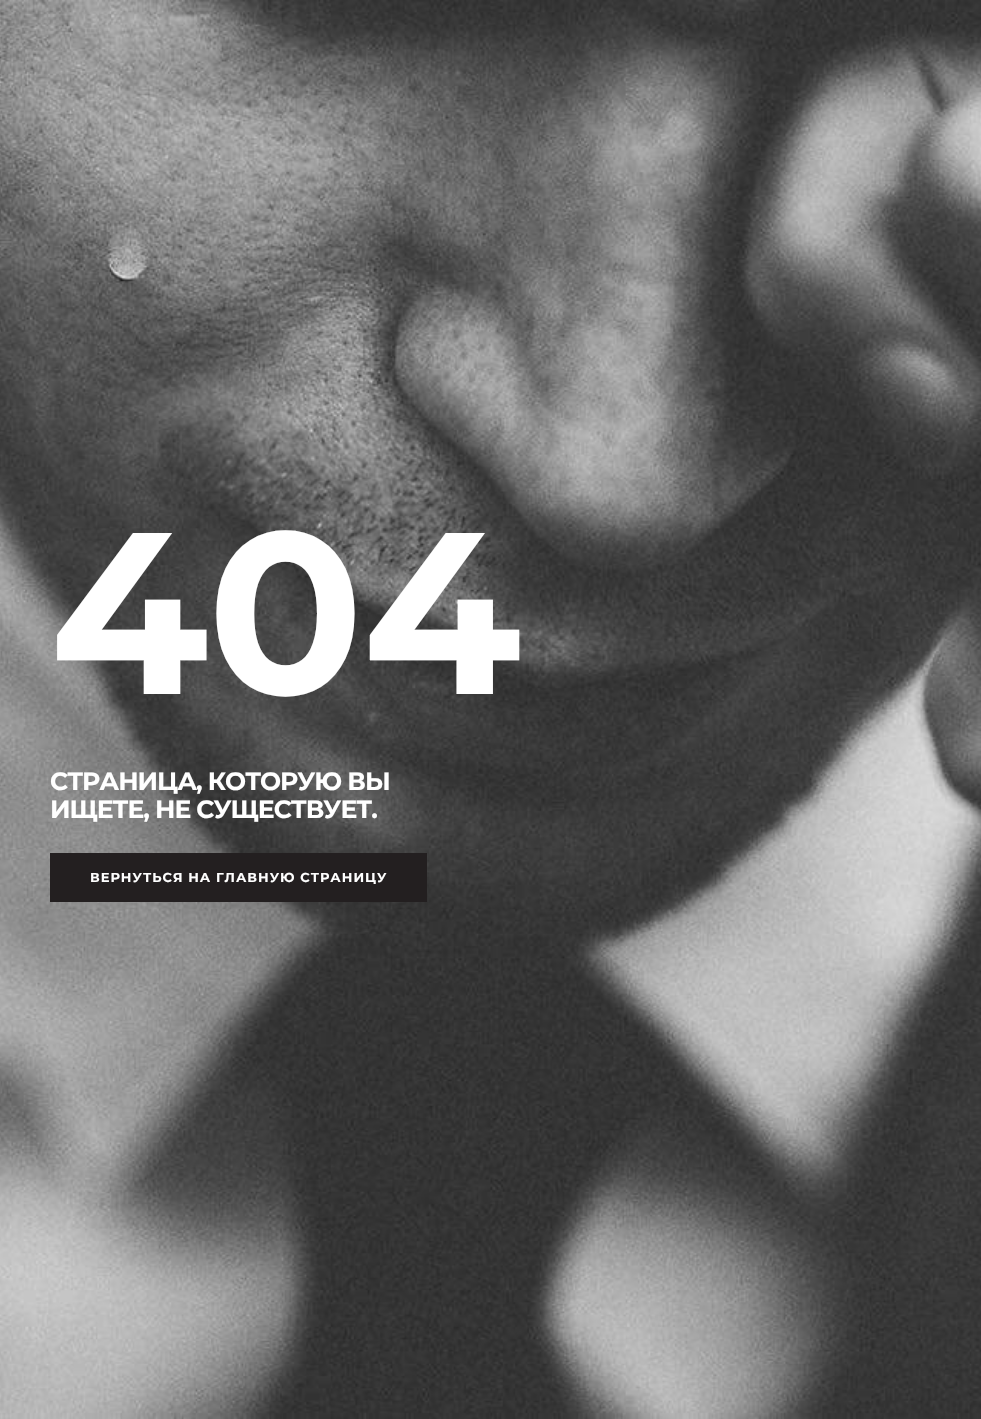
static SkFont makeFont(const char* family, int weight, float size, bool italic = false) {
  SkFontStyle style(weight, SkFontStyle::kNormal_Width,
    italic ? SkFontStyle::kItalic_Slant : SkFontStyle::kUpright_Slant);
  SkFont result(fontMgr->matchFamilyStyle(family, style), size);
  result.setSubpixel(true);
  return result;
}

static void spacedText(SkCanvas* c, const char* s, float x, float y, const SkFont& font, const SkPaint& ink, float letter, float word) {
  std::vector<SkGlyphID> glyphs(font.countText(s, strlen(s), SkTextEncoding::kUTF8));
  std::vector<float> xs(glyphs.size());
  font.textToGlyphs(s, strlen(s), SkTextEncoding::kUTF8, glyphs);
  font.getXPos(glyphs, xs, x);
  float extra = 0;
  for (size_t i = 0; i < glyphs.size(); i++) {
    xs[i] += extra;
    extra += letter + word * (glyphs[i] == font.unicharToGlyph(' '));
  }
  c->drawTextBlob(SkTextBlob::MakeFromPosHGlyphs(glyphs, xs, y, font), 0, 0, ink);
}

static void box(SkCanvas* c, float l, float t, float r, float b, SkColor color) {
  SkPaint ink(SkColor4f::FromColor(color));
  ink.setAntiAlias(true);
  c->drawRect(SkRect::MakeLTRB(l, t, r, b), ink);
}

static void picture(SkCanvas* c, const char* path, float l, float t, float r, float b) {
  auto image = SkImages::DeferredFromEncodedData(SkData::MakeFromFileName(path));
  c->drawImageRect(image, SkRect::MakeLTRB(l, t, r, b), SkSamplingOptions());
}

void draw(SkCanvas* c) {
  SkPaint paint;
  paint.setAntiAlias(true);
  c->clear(0xffffffff);
  picture(c, "img_01.png", 0, 0, 981, 1419);
  SkFont face1 = makeFont("Montserrat", 700, 230);
  paint.setColor(0xffffffff);
  spacedText(c, "404", 50, 694, face1, paint, -1, 0);
  SkFont face2 = makeFont("Montserrat", 700, 25);
  spacedText(c, "СТРАНИЦА, КОТОРУЮ ВЫ", 50, 790, face2, paint, -1, 0);
  spacedText(c, "ИЩЕТЕ, НЕ СУЩЕСТВУЕТ.", 50, 818, face2, paint, -1, 0);
  box(c, 50, 853, 427, 902, 0xff231f20);
  SkFont face3 = makeFont("Montserrat", 700, 13);
  spacedText(c, "ВЕРНУТЬСЯ НА ГЛАВНУЮ СТРАНИЦУ", 90, 882, face3, paint, 1, 0);
}
